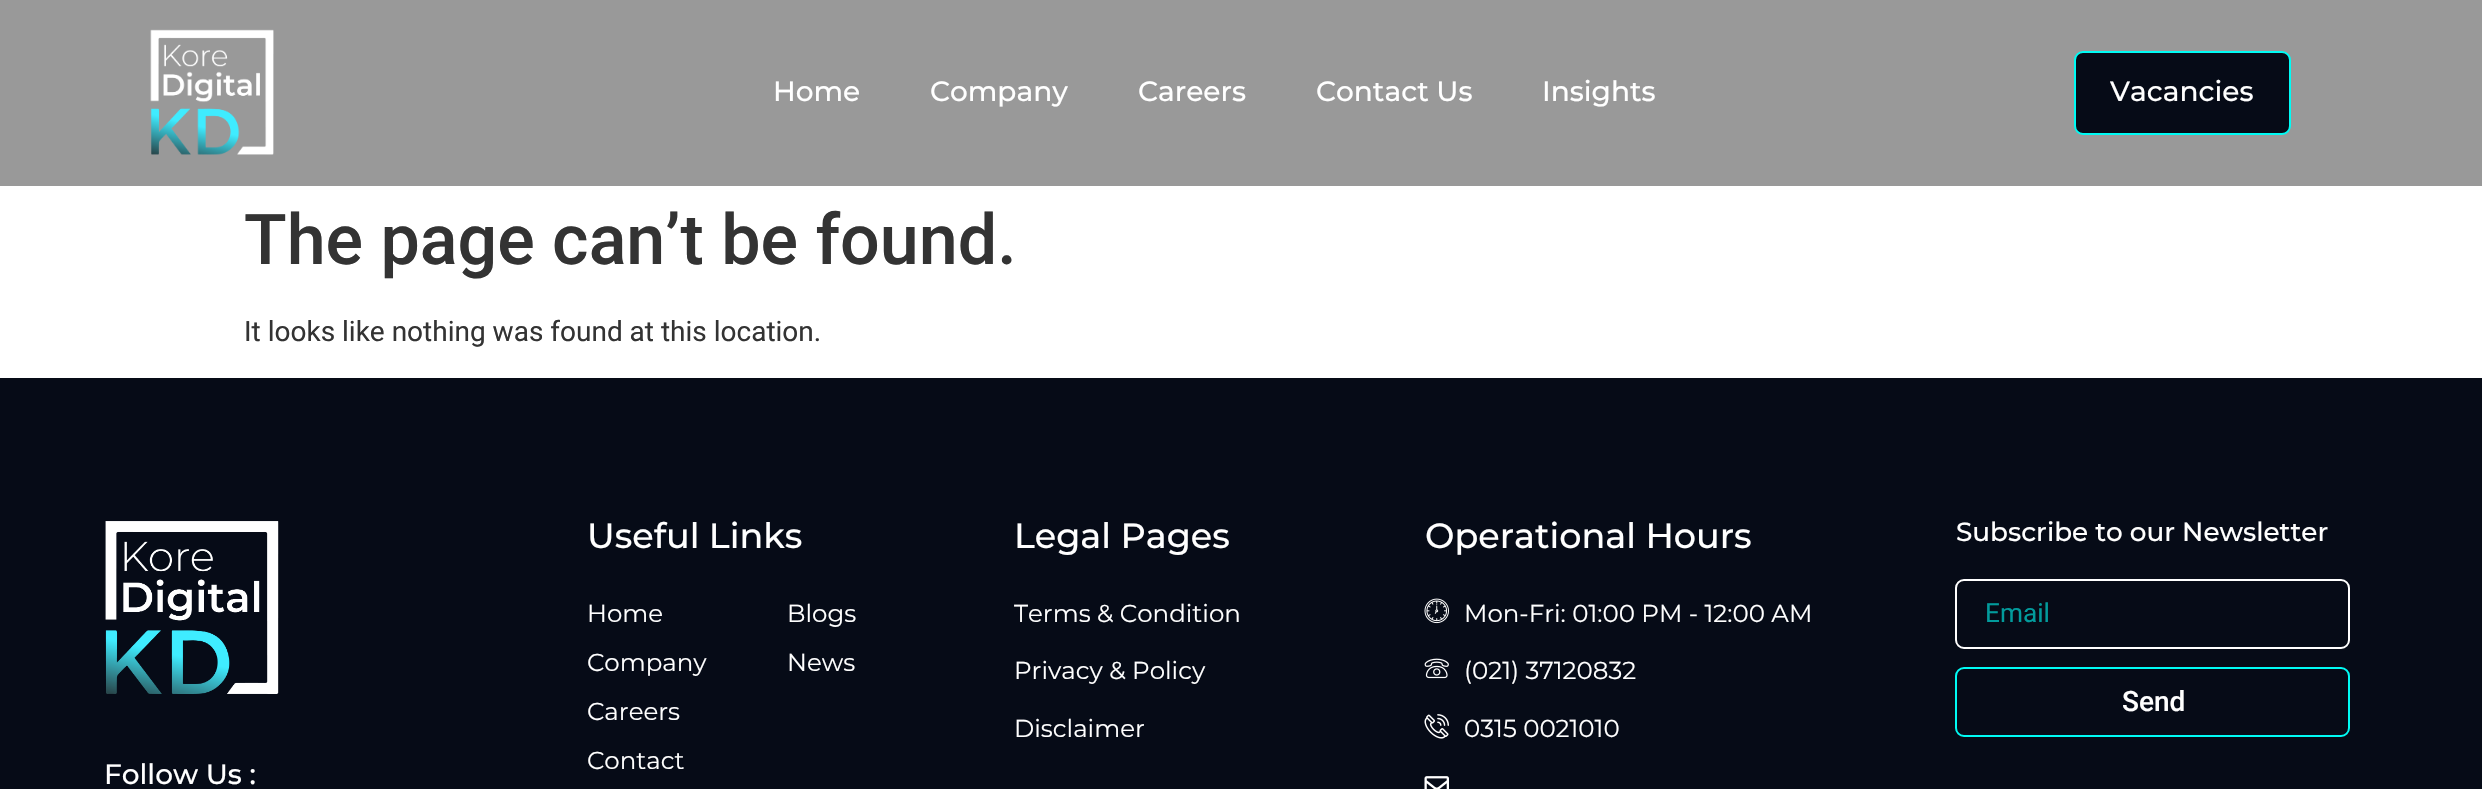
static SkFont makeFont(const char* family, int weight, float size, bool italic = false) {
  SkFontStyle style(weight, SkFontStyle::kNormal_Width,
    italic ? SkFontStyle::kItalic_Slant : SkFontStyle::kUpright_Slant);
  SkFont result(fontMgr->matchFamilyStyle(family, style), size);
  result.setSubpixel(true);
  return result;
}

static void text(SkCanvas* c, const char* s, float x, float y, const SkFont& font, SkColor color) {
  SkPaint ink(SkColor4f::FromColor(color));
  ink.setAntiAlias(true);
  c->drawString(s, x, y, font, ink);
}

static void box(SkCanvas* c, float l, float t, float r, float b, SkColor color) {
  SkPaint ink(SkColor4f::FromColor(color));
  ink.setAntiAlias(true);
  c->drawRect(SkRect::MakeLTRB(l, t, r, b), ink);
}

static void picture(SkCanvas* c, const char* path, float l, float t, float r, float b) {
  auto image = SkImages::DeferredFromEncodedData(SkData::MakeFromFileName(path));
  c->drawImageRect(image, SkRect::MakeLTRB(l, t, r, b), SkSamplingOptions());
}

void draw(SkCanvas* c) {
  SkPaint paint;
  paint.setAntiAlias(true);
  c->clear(0xffffffff);
  box(c, 0, 0, 2482, 186, 0xff999999);
  picture(c, "img_01.png", 150, 29, 274, 155);
  SkFont face1 = makeFont("Montserrat", 500, 28);
  text(c, "Home", 773, 101, face1, 0xffffffff);
  text(c, "Company", 930, 101, face1, 0xffffffff);
  text(c, "Careers", 1138, 101, face1, 0xffffffff);
  text(c, "Contact Us", 1316, 101, face1, 0xffffffff);
  text(c, "Insights", 1542, 101, face1, 0xffffffff);
  paint.setColor(0xff060b17);
  c->drawRoundRect(SkRect::MakeLTRB(2075, 52, 2290, 134), 8, 8, paint);
  paint.setStyle(SkPaint::kStroke_Style);
  paint.setStrokeWidth(2);
  paint.setColor(0xff00fbf4);
  c->drawRoundRect(SkRect::MakeLTRB(2075, 52, 2290, 134), 8, 8, paint);
  text(c, "Vacancies", 2110, 101, face1, 0xffffffff);
  SkFont face2 = makeFont("Roboto", 500, 70);
  text(c, "The page can’t be found.", 244, 264, face2, 0xff333333);
  SkFont face3 = makeFont("Roboto", 400, 28);
  text(c, "It looks like nothing was found at this location.", 244, 341, face3, 0xff333333);
  box(c, 0, 378, 2482, 789, 0xff060b17);
  SkFont face4 = makeFont("Montserrat", 500, 35);
  text(c, "Useful Links", 587, 548, face4, 0xffffffff);
  SkFont face5 = makeFont("Montserrat", 400, 24.5f);
  text(c, "Home", 587, 622, face5, 0xffffffff);
  text(c, "Company", 587, 671, face5, 0xffffffff);
  text(c, "Careers", 587, 720, face5, 0xffffffff);
  text(c, "Contact", 587, 769, face5, 0xffffffff);
  text(c, "Blogs", 787, 622, face5, 0xffffffff);
  text(c, "News", 787, 671, face5, 0xffffffff);
  text(c, "Legal Pages", 1014, 548, face4, 0xffffffff);
  text(c, "Terms & Condition", 1014, 622, face5, 0xffffffff);
  text(c, "Privacy & Policy", 1014, 679, face5, 0xffffffff);
  text(c, "Disclaimer", 1014, 737, face5, 0xffffffff);
  text(c, "Operational Hours", 1425, 548, face4, 0xffffffff);
  picture(c, "img_02.png", 1424, 598, 1449, 624);
  text(c, "Mon-Fri: 01:00 PM - 12:00 AM", 1464, 622, face5, 0xffffffff);
  picture(c, "img_03.png", 1424, 658, 1449, 679);
  text(c, "(021) 37120832", 1464, 679, face5, 0xffffffff);
  picture(c, "img_04.png", 1424, 714, 1449, 739);
  text(c, "0315 0021010", 1464, 737, face5, 0xffffffff);
  picture(c, "img_05.png", 1424, 776, 1449, 789);
  SkFont face6 = makeFont("Montserrat", 500, 26.25f);
  text(c, "Subscribe to our Newsletter", 1956, 541, face6, 0xffffffff);
  paint.setColor(0xffffffff);
  c->drawRoundRect(SkRect::MakeLTRB(1956, 580, 2349, 648), 8, 8, paint);
  SkFont face7 = makeFont("Roboto", 400, 26.25f);
  text(c, "Email", 1985, 622, face7, 0xff029b9c);
  paint.setColor(0xff00fbf4);
  c->drawRoundRect(SkRect::MakeLTRB(1956, 668, 2349, 736), 8, 8, paint);
  SkFont face8 = makeFont("Roboto", 500, 28);
  text(c, "Send", 2122, 711, face8, 0xffffffff);
  picture(c, "img_06.png", 105, 521, 279, 694);
  text(c, "Follow Us :", 104, 784, face1, 0xffffffff);
}
